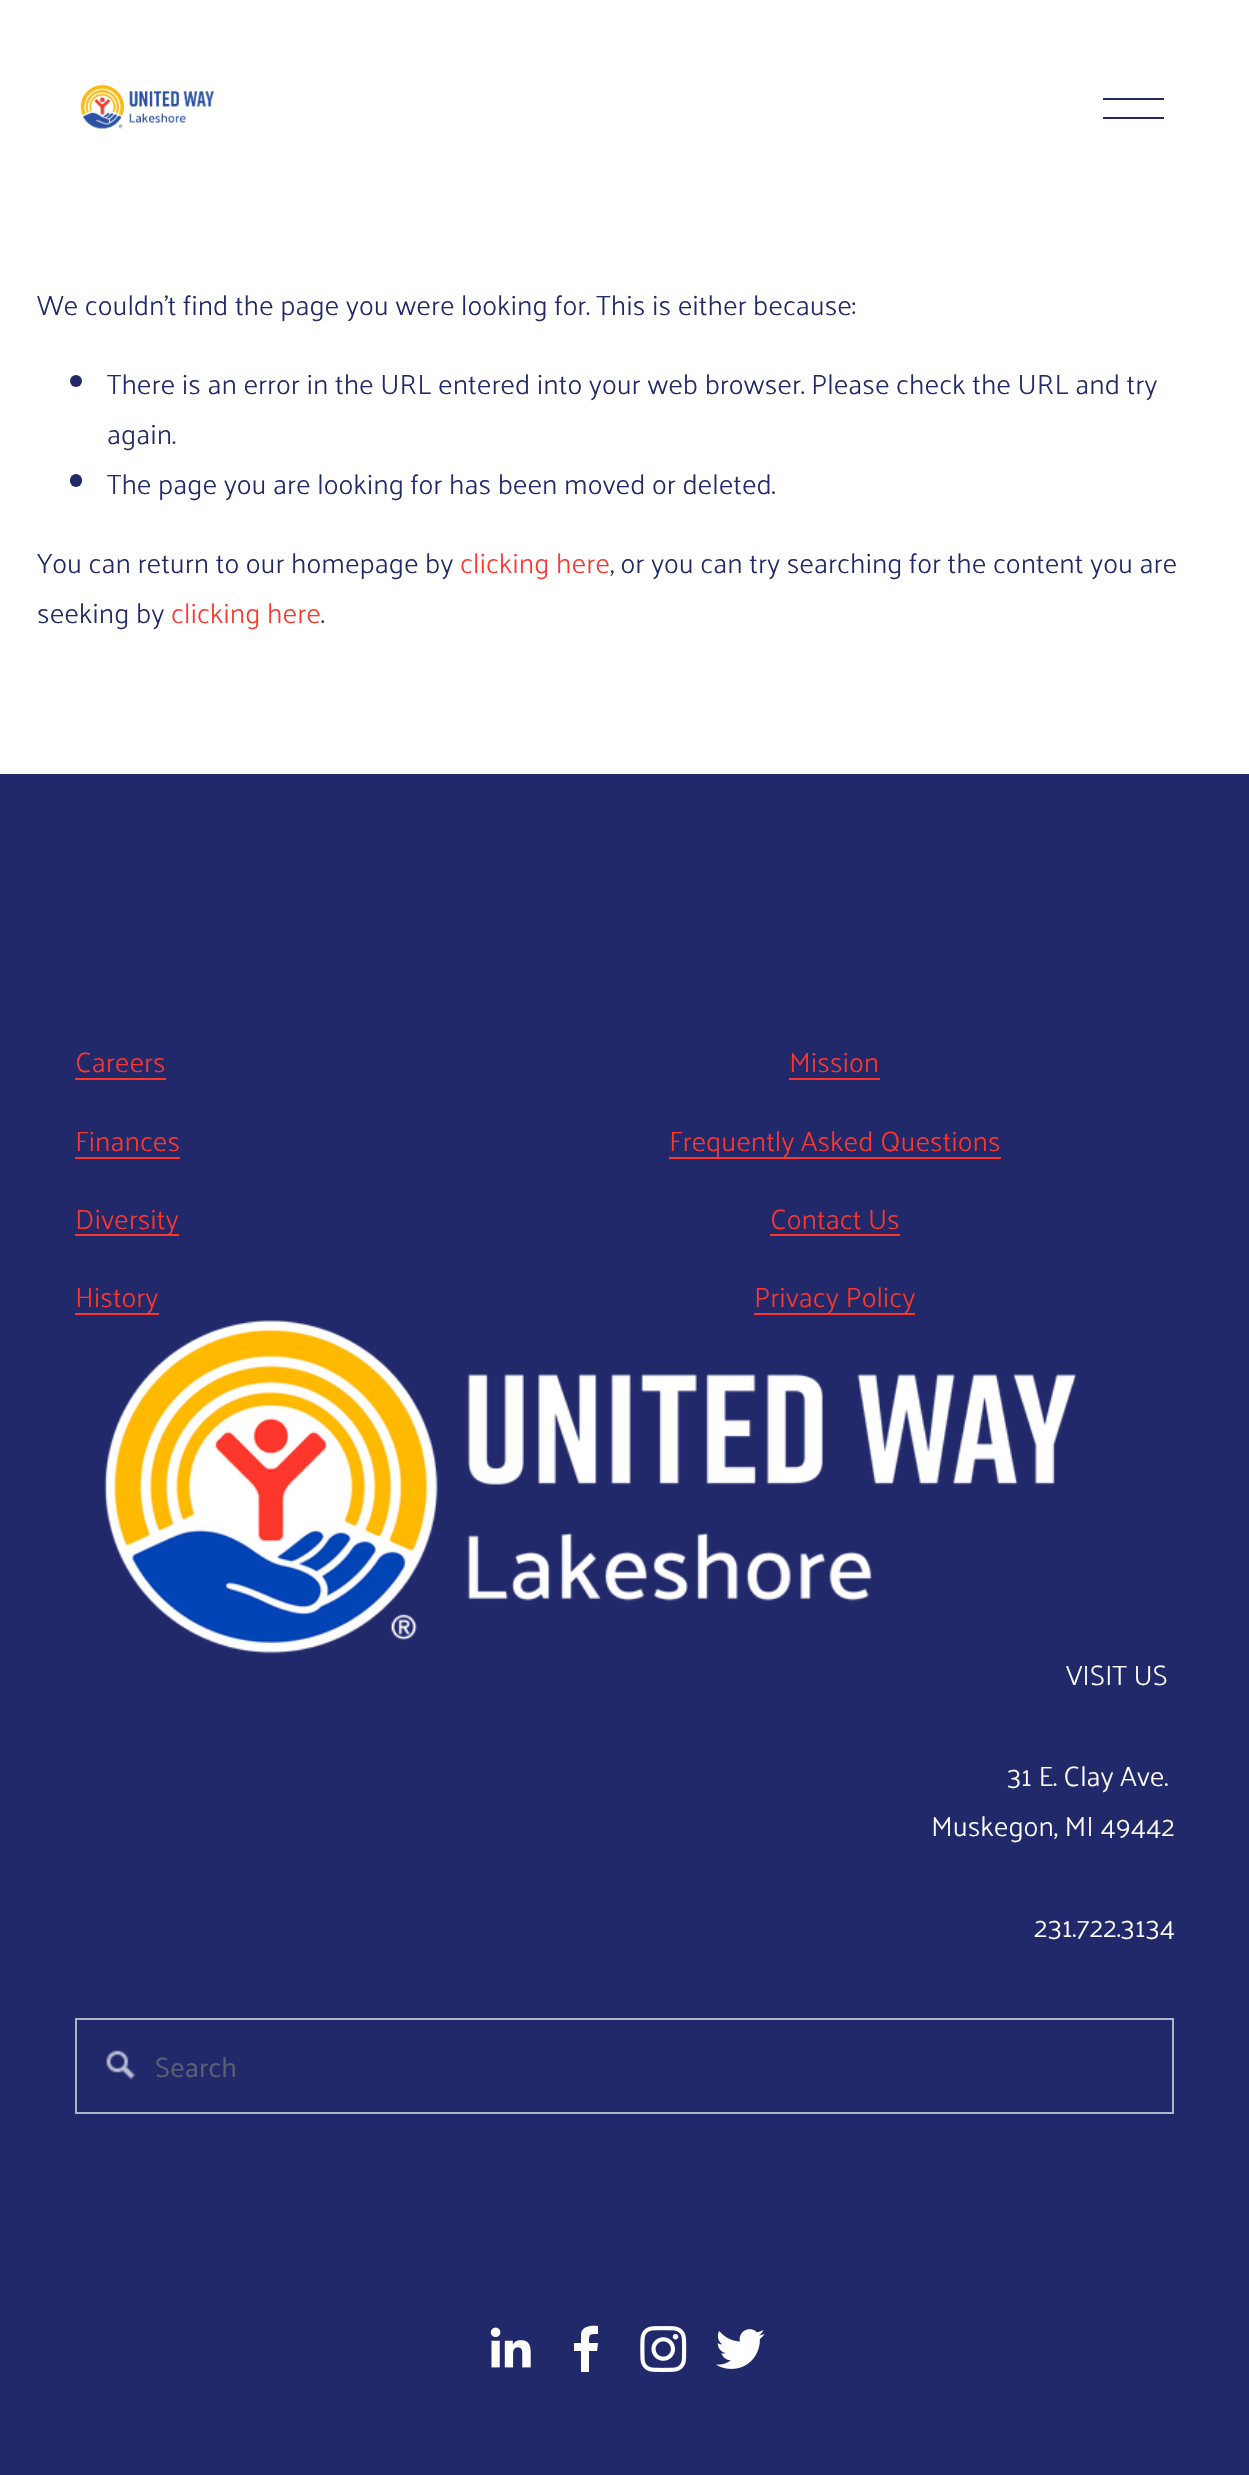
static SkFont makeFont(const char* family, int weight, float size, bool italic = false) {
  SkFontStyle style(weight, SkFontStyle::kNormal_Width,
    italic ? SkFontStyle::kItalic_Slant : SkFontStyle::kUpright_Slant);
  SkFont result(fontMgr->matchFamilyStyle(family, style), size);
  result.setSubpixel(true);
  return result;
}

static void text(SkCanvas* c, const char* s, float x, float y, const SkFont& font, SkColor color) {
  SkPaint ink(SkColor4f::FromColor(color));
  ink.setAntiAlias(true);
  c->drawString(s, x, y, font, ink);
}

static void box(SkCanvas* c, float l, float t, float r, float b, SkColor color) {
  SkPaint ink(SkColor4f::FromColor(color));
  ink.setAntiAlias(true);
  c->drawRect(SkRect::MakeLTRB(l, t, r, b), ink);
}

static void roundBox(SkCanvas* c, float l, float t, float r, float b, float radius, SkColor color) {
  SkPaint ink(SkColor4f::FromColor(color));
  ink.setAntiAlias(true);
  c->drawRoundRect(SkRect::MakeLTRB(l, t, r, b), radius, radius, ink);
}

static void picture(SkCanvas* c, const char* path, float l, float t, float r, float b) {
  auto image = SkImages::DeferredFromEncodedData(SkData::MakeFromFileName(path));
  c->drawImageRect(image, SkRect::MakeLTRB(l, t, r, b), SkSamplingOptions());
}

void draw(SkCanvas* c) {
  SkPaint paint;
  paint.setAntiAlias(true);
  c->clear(0xffffffff);
  picture(c, "img_01.png", 80, 84, 214, 130);
  box(c, 1103, 98, 1164, 100, 0xff21296b);
  box(c, 1103, 117, 1164, 119, 0xff21296b);
  SkFont face1 = makeFont("Palanquin", 300, 28);
  text(c, "We couldn't find the page you were looking for. This is either because:", 37, 315, face1, 0xff21296b);
  paint.setColor(0xff21296b);
  c->drawCircle(76, 381, 6, paint);
  text(c, "There is an error in the URL entered into your web browser. Please check the URL and try", 107, 394, face1, 0xff21296b);
  text(c, "again.", 107, 444, face1, 0xff21296b);
  roundBox(c, 70, 474, 82, 487, 6, 0xff21296b);
  text(c, "The page you are looking for has been moved or deleted.", 107, 494, face1, 0xff21296b);
  text(c, "You can return to our homepage by", 37, 573, face1, 0xff21296b);
  text(c, "clicking here", 460, 573, face1, 0xfffd372c);
  text(c, ", or you can try searching for the content you are", 610, 573, face1, 0xff21296b);
  text(c, "seeking by", 37, 623, face1, 0xff21296b);
  text(c, "clicking here", 171, 623, face1, 0xfffd372c);
  text(c, ".", 321, 623, face1, 0xff21296b);
  box(c, 0, 774, 1249, 2475, 0xff21296b);
  text(c, "Careers", 75, 1072, face1, 0xfffd372c);
  box(c, 75, 1078, 166, 1080, 0xfffd372c);
  text(c, "Finances", 75, 1151, face1, 0xfffd372c);
  box(c, 75, 1157, 180, 1159, 0xfffd372c);
  box(c, 75, 1234, 179, 1236, 0xfffd372c);
  text(c, "Diversity", 75, 1229, face1, 0xfffd372c);
  box(c, 75, 1313, 159, 1315, 0xfffd372c);
  text(c, "History", 75, 1307, face1, 0xfffd372c);
  text(c, "Mission", 789, 1072, face1, 0xfffd372c);
  box(c, 789, 1078, 880, 1080, 0xfffd372c);
  box(c, 669, 1157, 1001, 1159, 0xfffd372c);
  text(c, "Frequently Asked Questions", 669, 1151, face1, 0xfffd372c);
  text(c, "Contact Us", 770, 1229, face1, 0xfffd372c);
  box(c, 770, 1234, 900, 1236, 0xfffd372c);
  box(c, 754, 1313, 915, 1315, 0xfffd372c);
  text(c, "Privacy Policy", 754, 1307, face1, 0xfffd372c);
  picture(c, "img_02.png", 104, 1320, 1077, 1654);
  text(c, "VISIT US", 1066, 1685, face1, 0xffffffff);
  text(c, "31 E. Clay Ave.", 1007, 1786, face1, 0xffffffff);
  text(c, "Muskegon, MI 49442", 931, 1836, face1, 0xffffffff);
  text(c, "231.722.3134", 1034, 1937, face1, 0xffffffff);
  picture(c, "img_03.png", 106, 2050, 136, 2080);
  paint.setStyle(SkPaint::kStroke_Style);
  paint.setStrokeWidth(2);
  paint.setColor(0xffb1b3c7);
  c->drawRect(SkRect::MakeLTRB(76, 2019, 1173, 2113), paint);
  SkFont face2 = makeFont("Palanquin", 400, 28);
  text(c, "Search", 155, 2077, face2, 0xff5c5e72);
  picture(c, "img_04.png", 490, 2327, 531, 2368);
  paint.setStyle(SkPaint::kFill_Style);
  paint.setColor(0xffffffff);
  c->drawPath(SkPathBuilder().moveTo(589, 2372).lineTo(589, 2351).lineTo(597, 2351).lineTo(598, 2343).lineTo(589, 2343).cubicTo(589, 2334, 589, 2334, 598, 2334).lineTo(598, 2326).cubicTo(591, 2325, 582, 2326, 581, 2334).lineTo(581, 2343).lineTo(574, 2343).lineTo(574, 2351).lineTo(581, 2351).lineTo(581, 2372).close().detach(), paint);
  picture(c, "img_05.png", 640, 2326, 687, 2372);
  picture(c, "img_06.png", 716, 2329, 765, 2369);
}
